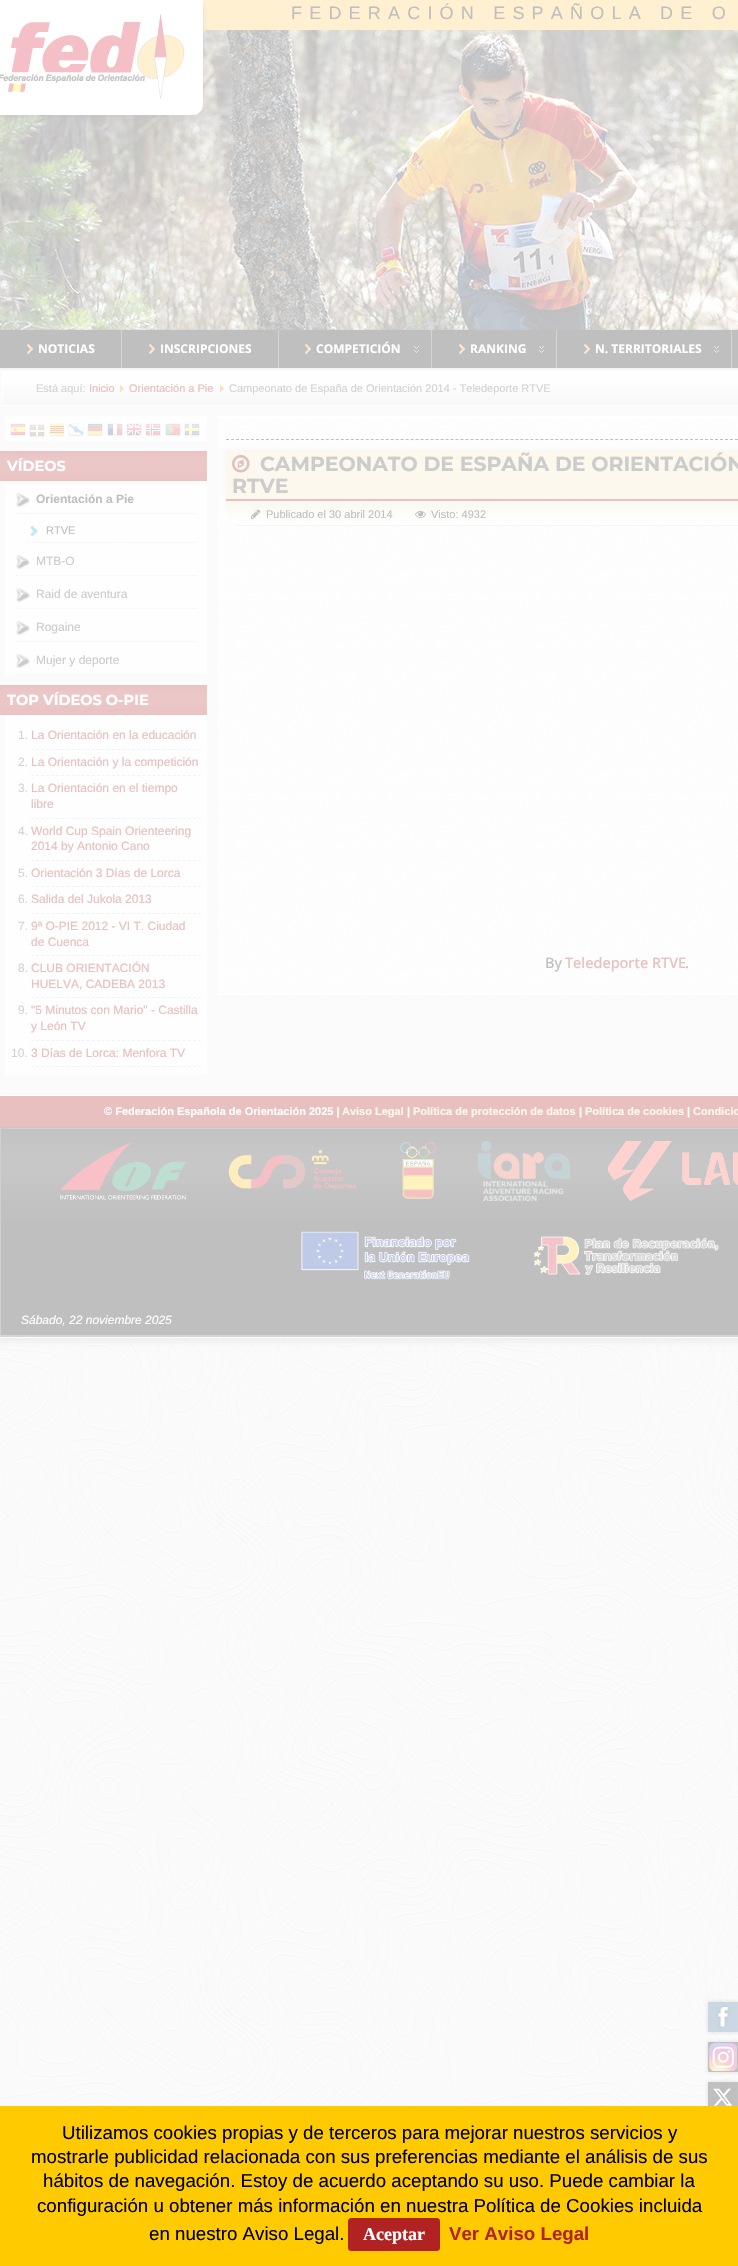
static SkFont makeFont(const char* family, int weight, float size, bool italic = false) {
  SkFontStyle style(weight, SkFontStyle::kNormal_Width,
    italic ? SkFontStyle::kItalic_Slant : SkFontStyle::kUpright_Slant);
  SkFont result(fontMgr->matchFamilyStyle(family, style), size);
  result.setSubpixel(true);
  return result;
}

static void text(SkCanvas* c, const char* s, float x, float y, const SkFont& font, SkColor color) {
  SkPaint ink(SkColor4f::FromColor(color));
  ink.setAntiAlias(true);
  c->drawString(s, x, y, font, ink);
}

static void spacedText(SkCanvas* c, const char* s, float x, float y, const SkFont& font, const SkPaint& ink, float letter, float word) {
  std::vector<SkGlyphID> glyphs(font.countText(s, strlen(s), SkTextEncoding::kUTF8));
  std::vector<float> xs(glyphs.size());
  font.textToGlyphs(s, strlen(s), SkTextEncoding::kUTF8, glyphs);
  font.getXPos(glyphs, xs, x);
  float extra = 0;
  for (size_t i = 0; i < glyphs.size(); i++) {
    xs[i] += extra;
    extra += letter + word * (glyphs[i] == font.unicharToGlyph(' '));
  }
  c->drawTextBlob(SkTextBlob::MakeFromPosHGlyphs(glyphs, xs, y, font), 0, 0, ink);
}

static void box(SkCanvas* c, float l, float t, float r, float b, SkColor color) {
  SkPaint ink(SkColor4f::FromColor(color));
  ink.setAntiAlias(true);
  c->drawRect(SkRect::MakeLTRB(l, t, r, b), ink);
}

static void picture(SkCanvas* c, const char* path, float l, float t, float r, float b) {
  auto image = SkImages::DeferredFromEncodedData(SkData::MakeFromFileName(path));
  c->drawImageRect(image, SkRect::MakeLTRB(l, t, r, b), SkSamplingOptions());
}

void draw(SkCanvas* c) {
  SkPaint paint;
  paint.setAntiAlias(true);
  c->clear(0xffffffff);
  picture(c, "img_01.png", 0, 1338, 738, 2106);
  box(c, 0, 368, 738, 1095, 0xfffbfbfb);
  box(c, 203, 0, 738, 30, 0xfffef0d1);
  picture(c, "img_03.png", 0, 30, 738, 330);
  paint.setColor(0x66bfbfbf);
  paint.setMaskFilter(SkMaskFilter::MakeBlur(kNormal_SkBlurStyle, 2.5f));
  c->drawRoundRect(SkRect::MakeLTRB(-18, -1, 203, 116), 10, 10, paint);
  paint.setMaskFilter(nullptr);
  paint.setColor(0xffffffff);
  c->drawPath(SkPathBuilder().moveTo(-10, -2).lineTo(203, -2).lineTo(203, 105).cubicTo(203, 110.5f, 198.5f, 115, 193, 115).lineTo(0, 115).cubicTo(-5.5f, 115, -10, 110.5f, -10, 105).close().detach(), paint);
  picture(c, "img_02.png", 0, 14, 184, 99);
  SkFont face1 = makeFont("Liberation Sans", 400, 18);
  paint.setColor(0xffbfbfbf);
  spacedText(c, "FEDERACIÓN ESPAÑOLA DE O", 291, 19, face1, paint, 7.2f, 0);
  box(c, 3, 372, 738, 405, 0xfffefefe);
  picture(c, "img_06.png", 3, 384, 738, 405);
  paint.setStyle(SkPaint::kStroke_Style);
  paint.setStrokeWidth(1);
  paint.setColor(0xffffffff);
  c->drawRect(SkRect::MakeLTRB(2.5f, 371.5f, 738.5f, 405.5f), paint);
  paint.setStyle(SkPaint::kFill_Style);
  paint.setColor(0x80bfbfbf);
  paint.setMaskFilter(SkMaskFilter::MakeBlur(kNormal_SkBlurStyle, 1));
  c->drawRect(SkRect::MakeLTRB(0, 330, 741, 368), paint);
  paint.setMaskFilter(nullptr);
  box(c, 0, 330, 738, 368, 0xffbfbfbf);
  box(c, 121, 330, 122, 368, 0xffd5d5d5);
  picture(c, "img_04.png", 27, 344, 33, 354);
  SkFont face2 = makeFont("Open Sans", 700, 12);
  text(c, "NOTICIAS", 38, 353, face2, 0xffffffff);
  box(c, 278, 330, 279, 368, 0xffd5d5d5);
  picture(c, "img_04.png", 149, 344, 155, 354);
  text(c, "INSCRIPCIONES", 160, 353, face2, 0xffffffff);
  box(c, 431, 330, 432, 368, 0xffd5d5d5);
  picture(c, "img_05.png", 414, 346, 419, 353);
  picture(c, "img_04.png", 305, 344, 311, 354);
  text(c, "COMPETICIÓN", 316, 353, face2, 0xffffffff);
  box(c, 556, 330, 557, 368, 0xffd5d5d5);
  picture(c, "img_05.png", 539, 346, 544, 353);
  picture(c, "img_04.png", 459, 344, 465, 354);
  text(c, "RANKING", 470, 353, face2, 0xffffffff);
  box(c, 731, 330, 732, 368, 0xffd5d5d5);
  picture(c, "img_05.png", 714, 346, 719, 353);
  picture(c, "img_04.png", 584, 344, 590, 354);
  text(c, "N. TERRITORIALES", 595, 353, face2, 0xffffffff);
  SkFont face3 = makeFont("Liberation Sans", 400, 11);
  text(c, "Está aquí:", 36, 392, face3, 0xffd3d3d3);
  text(c, "Inicio", 89, 392, face3, 0xffe9c0c0);
  picture(c, "img_07.png", 120, 385, 124, 392);
  text(c, "Orientación a Pie", 129, 392, face3, 0xffe9c0c0);
  picture(c, "img_07.png", 220, 385, 224, 392);
  text(c, "Campeonato de España de Orientación 2014 - Teledeporte RTVE", 229, 392, face3, 0xffd3d3d3);
  box(c, 5, 416, 207, 441, 0xfffefefe);
  picture(c, "img_08.png", 10, 423, 26, 437);
  picture(c, "img_09.png", 29, 424, 45, 438);
  picture(c, "img_10.png", 50, 423, 64, 437);
  picture(c, "img_11.png", 68, 423, 84, 437);
  picture(c, "img_12.png", 87, 423, 103, 437);
  picture(c, "img_13.png", 107, 423, 123, 437);
  picture(c, "img_14.png", 126, 423, 142, 437);
  picture(c, "img_15.png", 145, 423, 161, 437);
  picture(c, "img_16.png", 165, 423, 181, 437);
  picture(c, "img_17.png", 184, 423, 200, 437);
  box(c, 0, 451, 207, 481, 0xffe9c0c0);
  picture(c, "img_18.png", 0, 451, 207, 481);
  SkFont face4 = makeFont("Montserrat", 700, 14.5f);
  text(c, "VÍDEOS", 7, 471, face4, 0xffffffff);
  box(c, 5, 485, 207, 675, 0xfffefefe);
  paint.setStyle(SkPaint::kStroke_Style);
  paint.setColor(0xfff2f2f2);
  paint.setPathEffect(SkDashPathEffect::Make({{1, 1}}, 0));
  c->drawPath(SkPathBuilder().moveTo(16, 513.5f).lineTo(197, 513.5f).detach(), paint);
  paint.setPathEffect(nullptr);
  picture(c, "img_19.png", 16, 492, 31, 507);
  SkFont face5 = makeFont("Liberation Sans", 700, 12);
  text(c, "Orientación a Pie", 36, 503, face5, 0xffbfbfbf);
  paint.setPathEffect(SkDashPathEffect::Make({{1, 1}}, 0));
  c->drawPath(SkPathBuilder().moveTo(26, 542.5f).lineTo(197, 542.5f).detach(), paint);
  paint.setPathEffect(nullptr);
  picture(c, "img_20.png", 30, 525, 38, 537);
  text(c, "RTVE", 46, 534, face3, 0xffbfbfbf);
  paint.setPathEffect(SkDashPathEffect::Make({{1, 1}}, 0));
  c->drawPath(SkPathBuilder().moveTo(16, 575.5f).lineTo(197, 575.5f).detach(), paint);
  paint.setPathEffect(nullptr);
  picture(c, "img_19.png", 16, 554, 31, 569);
  SkFont face6 = makeFont("Liberation Sans", 400, 12);
  text(c, "MTB-O", 36, 565, face6, 0xffcccccc);
  paint.setPathEffect(SkDashPathEffect::Make({{1, 1}}, 0));
  c->drawPath(SkPathBuilder().moveTo(16, 608.5f).lineTo(197, 608.5f).detach(), paint);
  paint.setPathEffect(nullptr);
  picture(c, "img_19.png", 16, 587, 31, 602);
  text(c, "Raid de aventura", 36, 598, face6, 0xffcccccc);
  paint.setPathEffect(SkDashPathEffect::Make({{1, 1}}, 0));
  c->drawPath(SkPathBuilder().moveTo(16, 641.5f).lineTo(197, 641.5f).detach(), paint);
  paint.setPathEffect(nullptr);
  picture(c, "img_19.png", 16, 620, 31, 635);
  text(c, "Rogaine", 36, 631, face6, 0xffcccccc);
  paint.setPathEffect(SkDashPathEffect::Make({{1, 1}}, 0));
  c->drawPath(SkPathBuilder().moveTo(16, 674.5f).lineTo(197, 674.5f).detach(), paint);
  paint.setPathEffect(nullptr);
  picture(c, "img_19.png", 16, 653, 31, 668);
  text(c, "Mujer y deporte", 36, 664, face6, 0xffcccccc);
  box(c, 0, 685, 207, 715, 0xffe9c0c0);
  picture(c, "img_18.png", 0, 685, 207, 715);
  text(c, "TOP VÍDEOS O-PIE", 7, 705, face4, 0xffffffff);
  box(c, 5, 715, 207, 1075, 0xfffefefe);
  paint.setPathEffect(SkDashPathEffect::Make({{3, 2.06f}}, 0));
  c->drawPath(SkPathBuilder().moveTo(31, 749.5f).lineTo(201, 749.5f).detach(), paint);
  paint.setPathEffect(nullptr);
  text(c, "1.", 18, 739, face6, 0xffd3d3d3);
  text(c, "La Orientación en la educación", 31, 739, face6, 0xffe9c0c0);
  paint.setPathEffect(SkDashPathEffect::Make({{3, 2.06f}}, 0));
  c->drawPath(SkPathBuilder().moveTo(31, 775.5f).lineTo(201, 775.5f).detach(), paint);
  paint.setPathEffect(nullptr);
  text(c, "2.", 18, 766, face6, 0xffd3d3d3);
  text(c, "La Orientación y la competición", 31, 766, face6, 0xffe9c0c0);
  paint.setPathEffect(SkDashPathEffect::Make({{3, 2.06f}}, 0));
  c->drawPath(SkPathBuilder().moveTo(31, 818.5f).lineTo(201, 818.5f).detach(), paint);
  paint.setPathEffect(nullptr);
  text(c, "3.", 18, 792, face6, 0xffd3d3d3);
  text(c, "La Orientación en el tiempo", 31, 792, face6, 0xffe9c0c0);
  text(c, "libre", 31, 808, face6, 0xffe9c0c0);
  paint.setPathEffect(SkDashPathEffect::Make({{3, 2.06f}}, 0));
  c->drawPath(SkPathBuilder().moveTo(31, 860.5f).lineTo(201, 860.5f).detach(), paint);
  paint.setPathEffect(nullptr);
  text(c, "4.", 18, 835, face6, 0xffd3d3d3);
  text(c, "World Cup Spain Orienteering", 31, 835, face6, 0xffe9c0c0);
  text(c, "2014 by Antonio Cano", 31, 850, face6, 0xffe9c0c0);
  paint.setPathEffect(SkDashPathEffect::Make({{3, 2.06f}}, 0));
  c->drawPath(SkPathBuilder().moveTo(31, 886.5f).lineTo(201, 886.5f).detach(), paint);
  paint.setPathEffect(nullptr);
  text(c, "5.", 18, 877, face6, 0xffd3d3d3);
  text(c, "Orientación 3 Días de Lorca", 31, 877, face6, 0xffe9c0c0);
  paint.setPathEffect(SkDashPathEffect::Make({{3, 2.06f}}, 0));
  c->drawPath(SkPathBuilder().moveTo(31, 913.5f).lineTo(201, 913.5f).detach(), paint);
  paint.setPathEffect(nullptr);
  text(c, "6.", 18, 903, face6, 0xffd3d3d3);
  text(c, "Salida del Jukola 2013", 31, 903, face6, 0xffe9c0c0);
  paint.setPathEffect(SkDashPathEffect::Make({{3, 2.06f}}, 0));
  c->drawPath(SkPathBuilder().moveTo(31, 955.5f).lineTo(201, 955.5f).detach(), paint);
  paint.setPathEffect(nullptr);
  text(c, "7.", 18, 930, face6, 0xffd3d3d3);
  text(c, "9ª O-PIE 2012 - VI T. Ciudad", 31, 930, face6, 0xffe9c0c0);
  text(c, "de Cuenca", 31, 946, face6, 0xffe9c0c0);
  paint.setPathEffect(SkDashPathEffect::Make({{3, 2.06f}}, 0));
  c->drawPath(SkPathBuilder().moveTo(31, 997.5f).lineTo(201, 997.5f).detach(), paint);
  paint.setPathEffect(nullptr);
  text(c, "8.", 18, 972, face6, 0xffd3d3d3);
  text(c, "CLUB ORIENTACIÓN", 31, 972, face6, 0xffe9c0c0);
  text(c, "HUELVA, CADEBA 2013", 31, 988, face6, 0xffe9c0c0);
  paint.setPathEffect(SkDashPathEffect::Make({{3, 2.06f}}, 0));
  c->drawPath(SkPathBuilder().moveTo(31, 1040.5f).lineTo(201, 1040.5f).detach(), paint);
  paint.setPathEffect(nullptr);
  text(c, "9.", 18, 1014, face6, 0xffd3d3d3);
  text(c, "\"5 Minutos con Mario\" - Castilla", 31, 1014, face6, 0xffe9c0c0);
  text(c, "y León TV", 31, 1030, face6, 0xffe9c0c0);
  paint.setPathEffect(SkDashPathEffect::Make({{3, 2.06f}}, 0));
  c->drawPath(SkPathBuilder().moveTo(31, 1066.5f).lineTo(201, 1066.5f).detach(), paint);
  paint.setPathEffect(nullptr);
  text(c, "10.", 11, 1057, face6, 0xffd3d3d3);
  text(c, "3 Días de Lorca: Menfora TV", 31, 1057, face6, 0xffe9c0c0);
  box(c, 218, 418, 738, 993, 0xfffefefe);
  picture(c, "img_21.png", 217, 416, 738, 995);
  paint.setStyle(SkPaint::kFill_Style);
  paint.setColor(0xffffffff);
  c->drawPath(SkPathBuilder().moveTo(217, 416).lineTo(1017, 416).lineTo(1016, 418).lineTo(218, 418).close().detach(), paint);
  c->drawPath(SkPathBuilder().moveTo(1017, 995).lineTo(217, 995).lineTo(218, 993).lineTo(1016, 993).close().detach(), paint);
  paint.setStyle(SkPaint::kStroke_Style);
  paint.setColor(0xffbfbfbf);
  paint.setPathEffect(SkDashPathEffect::Make({{3, 1.99f}}, 0));
  c->drawPath(SkPathBuilder().moveTo(226, 439.5f).lineTo(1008, 439.5f).detach(), paint);
  paint.setPathEffect(nullptr);
  paint.setStyle(SkPaint::kFill_Style);
  paint.setColor(0xfff2f2f2);
  paint.setMaskFilter(SkMaskFilter::MakeBlur(kNormal_SkBlurStyle, 2));
  c->drawRect(SkRect::MakeLTRB(226, 451, 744, 502), paint);
  paint.setMaskFilter(nullptr);
  box(c, 226, 450, 738, 499, 0xfffdf8ed);
  box(c, 226, 499, 738, 501, 0xffe9c0c0);
  picture(c, "img_22.png", 232, 455, 250, 473);
  SkFont face7 = makeFont("Montserrat", 700, 20.4f);
  text(c, "CAMPEONATO DE ESPAÑA DE ORIENTACIÓN", 260, 471, face7, 0xffcccccc);
  text(c, "RTVE", 232, 493, face7, 0xffcccccc);
  c->save();
  c->clipPath(SkPathBuilder().moveTo(226, 503).lineTo(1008, 503).lineTo(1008, 506).cubicTo(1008, 517, 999, 526, 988, 526).lineTo(246, 526).cubicTo(235, 526, 226, 517, 226, 506).close().detach(), true);
  {
    const SkColor colors[] = {0xfff9f9f1, 0xffffffff};
    const float stops[] = {0, 1};
    const SkPoint ends[] = {{617, 503}, {617, 525}};
    paint.setShader(SkGradientShader::MakeLinear(ends, colors, stops, 2, SkTileMode::kClamp));
    paint.setAlpha(255);
  }
  c->drawRect(SkRect::MakeLTRB(226, 503, 738, 525), paint);
  c->restore();
  box(c, 236, 525, 738, 526, 0xfff5f5f5);
  picture(c, "img_23.png", 251, 509, 261, 519);
  text(c, "Publicado el 30 abril 2014", 266, 518, face3, 0xffbfbfbf);
  picture(c, "img_24.png", 415, 510, 426, 518);
  text(c, "Visto: 4932", 431, 518, face3, 0xffbfbfbf);
  SkFont face8 = makeFont("Open Sans", 500, 14.5f);
  text(c, "By", 545, 968, face8, 0xffbfbfbf);
  text(c, "Teledeporte RTVE", 565, 968, face8, 0xffe9c0c0);
  text(c, ".", 685, 968, face8, 0xffbfbfbf);
  paint.setShader(nullptr);
  paint.setColor(0x33bfbfbf);
  paint.setMaskFilter(SkMaskFilter::MakeBlur(kNormal_SkBlurStyle, 3));
  c->drawRect(SkRect::MakeLTRB(-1, 1097, 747, 1342), paint);
  paint.setMaskFilter(nullptr);
  box(c, 0, 1335, 738, 1338, 0xfffbfbfb);
  box(c, 0, 1096, 738, 1127, 0xffe9c0c0);
  box(c, 0, 1095, 738, 1096, 0xffffffff);
  box(c, 0, 1127, 738, 1128, 0xffc8c8c8);
  SkFont face9 = makeFont("Liberation Sans", 700, 11);
  text(c, "© Federación Española de Orientación 2025 |", 104, 1115, face9, 0xffffffff);
  text(c, "Aviso Legal", 342, 1115, face9, 0xfffdf8ed);
  text(c, "|", 407, 1115, face9, 0xffffffff);
  text(c, "Política de protección de datos", 413, 1115, face9, 0xfffdf8ed);
  text(c, "|", 579, 1115, face9, 0xffffffff);
  text(c, "Política de cookies", 585, 1115, face9, 0xfffdf8ed);
  text(c, "|", 687, 1115, face9, 0xffffffff);
  text(c, "Condicio", 693, 1115, face9, 0xfffdf8ed);
  box(c, 1, 1129, 738, 1335, 0xffbfbfbf);
  picture(c, "img_25.png", 1, 1129, 738, 1222);
  box(c, 0, 1128, 738, 1129, 0xffd0d0d0);
  paint.setColor(0xffd5d5d5);
  c->drawPath(SkPathBuilder().moveTo(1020, 1337).lineTo(0, 1337).lineTo(1, 1335).lineTo(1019, 1335).close().detach(), paint);
  paint.setColor(0xffd0d0d0);
  c->drawPath(SkPathBuilder().moveTo(0, 1337).lineTo(0, 1128).lineTo(1, 1129).lineTo(1, 1335).close().detach(), paint);
  picture(c, "img_26.png", 60, 1142, 186, 1200);
  picture(c, "img_27.png", 228, 1149, 356, 1190);
  picture(c, "img_28.png", 400, 1142, 436, 1200);
  picture(c, "img_29.png", 478, 1141, 570, 1201);
  picture(c, "img_30.png", 608, 1141, 738, 1201);
  picture(c, "img_31.png", 301, 1231, 719, 1280);
  SkFont face10 = makeFont("Liberation Sans", 400, 12, true);
  text(c, "Sábado, 22 noviembre 2025", 21, 1324, face10, 0xffffffff);
  picture(c, "img_32.png", 705, 1999, 738, 2035);
  picture(c, "img_33.png", 705, 2039, 738, 2075);
  picture(c, "img_34.png", 705, 2079, 738, 2106);
  box(c, 0, 2106, 738, 2266, 0xffffcb00);
  SkFont face11 = makeFont("Liberation Sans", 400, 18.7f);
  text(c, "Utilizamos cookies propias y de terceros para mejorar nuestros servicios y", 62, 2139, face11, 0xff000000);
  text(c, "mostrarle publicidad relacionada con sus preferencias mediante el análisis de sus", 31, 2163, face11, 0xff000000);
  text(c, "hábitos de navegación. Estoy de acuerdo aceptando su uso. Puede cambiar la", 43, 2187, face11, 0xff000000);
  text(c, "configuración u obtener más información en nuestra Política de Cookies incluida", 37, 2212, face11, 0xff000000);
  text(c, "en nuestro Aviso Legal.", 149, 2240, face11, 0xff000000);
  paint.setColor(0xffb12323);
  c->drawRoundRect(SkRect::MakeLTRB(348.5f, 2218.5f, 439.5f, 2250.5f), 2.5f, 2.5f, paint);
  paint.setStyle(SkPaint::kStroke_Style);
  c->drawRoundRect(SkRect::MakeLTRB(348.5f, 2218.5f, 439.5f, 2250.5f), 2.5f, 2.5f, paint);
  SkFont face12 = makeFont("Liberation Serif", 700, 18);
  text(c, "Aceptar", 363, 2240, face12, 0xffffffff);
  SkFont face13 = makeFont("Liberation Sans", 700, 18.7f);
  text(c, "Ver Aviso Legal", 449, 2240, face13, 0xffb12323);
}
